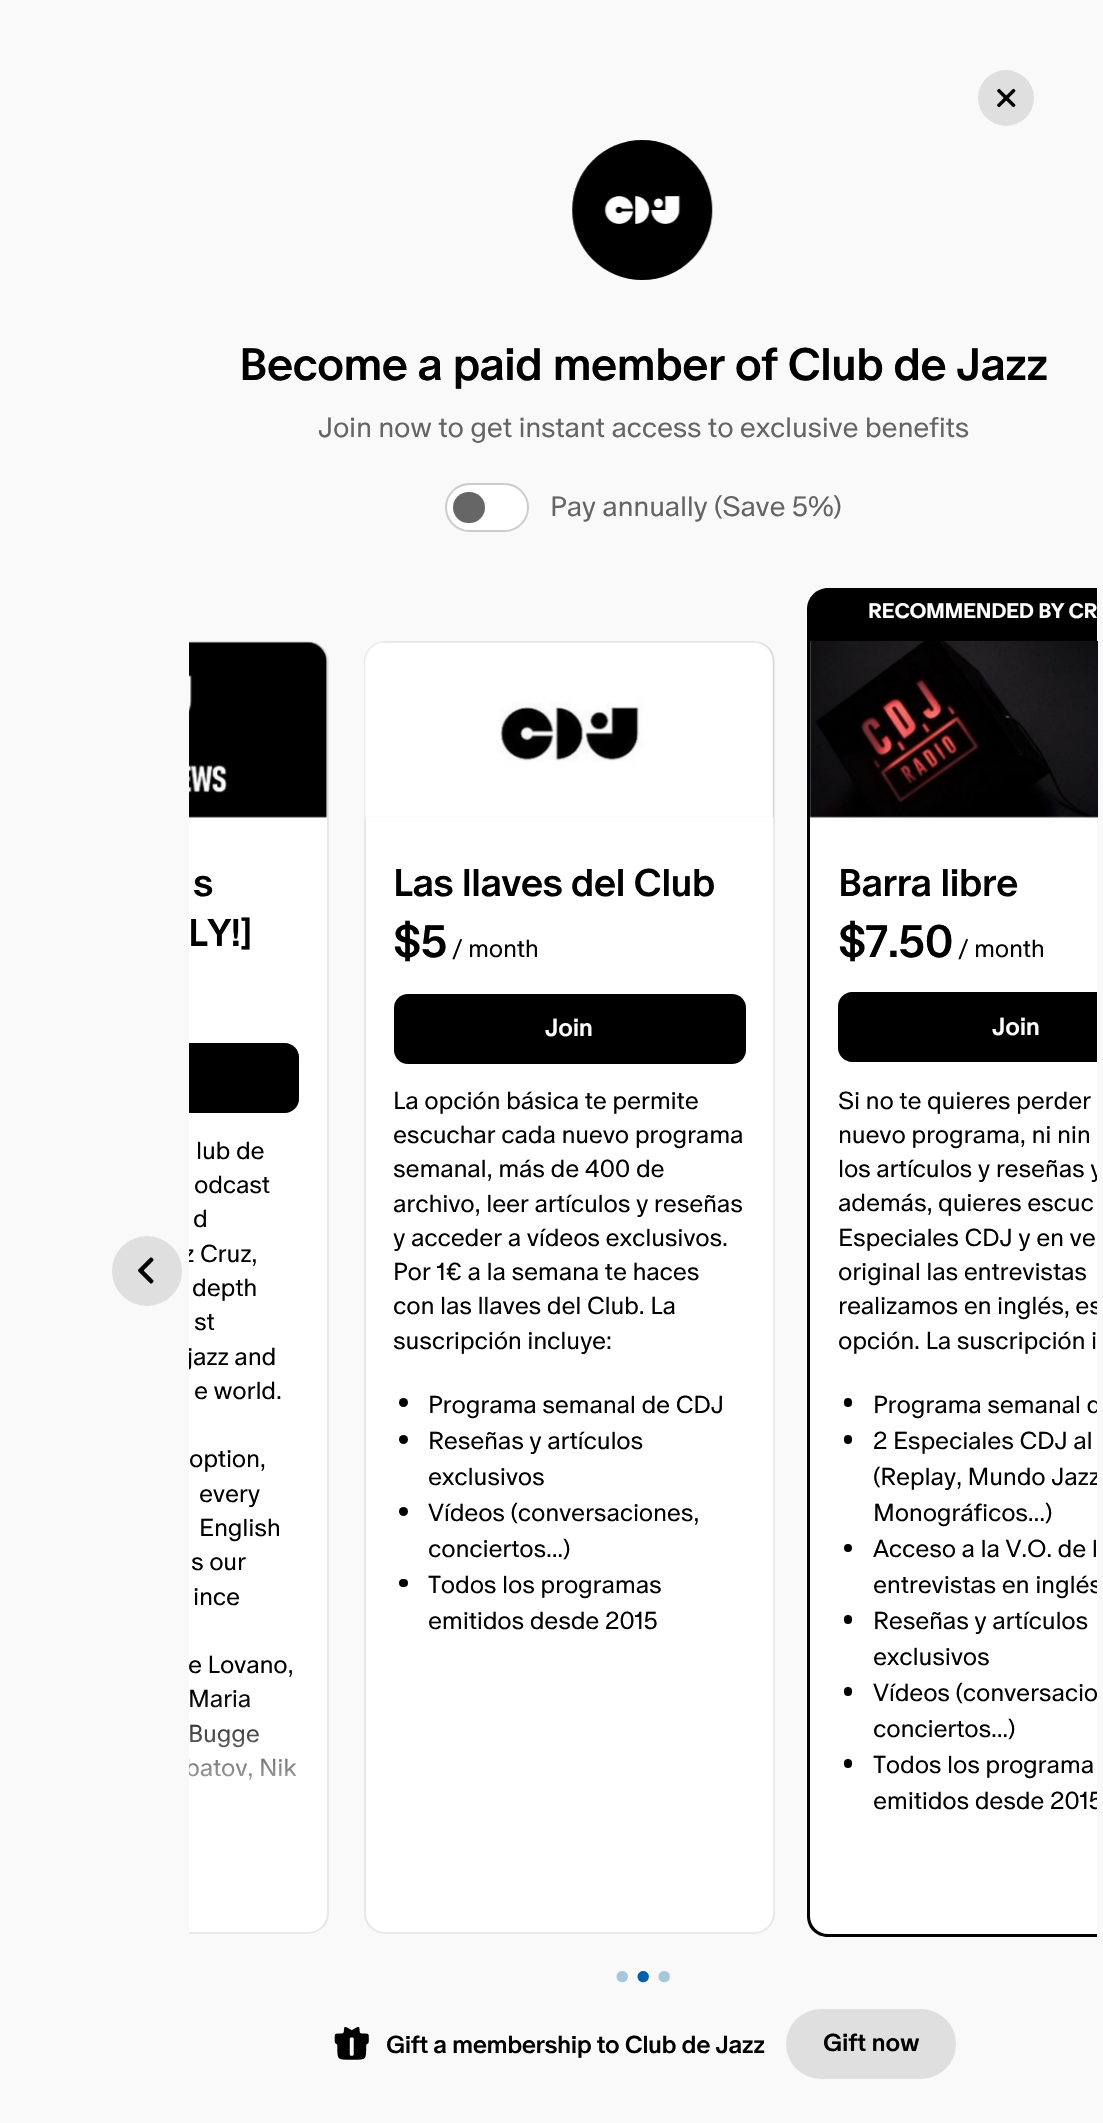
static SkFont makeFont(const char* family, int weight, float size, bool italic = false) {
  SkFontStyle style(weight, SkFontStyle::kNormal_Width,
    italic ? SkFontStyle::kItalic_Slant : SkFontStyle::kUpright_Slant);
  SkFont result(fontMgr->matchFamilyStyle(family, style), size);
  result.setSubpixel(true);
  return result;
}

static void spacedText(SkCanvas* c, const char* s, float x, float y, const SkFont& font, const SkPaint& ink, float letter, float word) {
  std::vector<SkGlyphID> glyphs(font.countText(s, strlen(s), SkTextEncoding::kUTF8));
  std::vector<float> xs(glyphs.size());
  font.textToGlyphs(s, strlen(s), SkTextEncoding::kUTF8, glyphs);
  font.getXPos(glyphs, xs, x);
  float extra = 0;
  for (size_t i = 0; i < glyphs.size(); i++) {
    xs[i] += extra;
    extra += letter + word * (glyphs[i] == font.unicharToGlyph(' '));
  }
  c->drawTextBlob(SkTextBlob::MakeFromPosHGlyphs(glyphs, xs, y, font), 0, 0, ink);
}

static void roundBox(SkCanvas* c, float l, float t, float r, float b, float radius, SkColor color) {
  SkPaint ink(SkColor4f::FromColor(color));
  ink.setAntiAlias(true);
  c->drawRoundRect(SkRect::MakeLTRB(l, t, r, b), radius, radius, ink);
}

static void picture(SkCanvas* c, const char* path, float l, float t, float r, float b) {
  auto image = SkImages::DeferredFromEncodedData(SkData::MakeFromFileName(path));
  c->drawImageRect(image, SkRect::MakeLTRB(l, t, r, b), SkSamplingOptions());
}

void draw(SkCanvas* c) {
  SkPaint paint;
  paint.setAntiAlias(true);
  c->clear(0xfff9f9f9);
  paint.setColor(0xffdfdfdf);
  c->drawCircle(1006, 98, 28, paint);
  picture(c, "img_01.png", 997, 88, 1016, 108);
  paint.setColor(0xffffffff);
  c->drawCircle(642, 210, 70, paint);
  picture(c, "img_02.png", 572, 140, 713, 280);
  paint.setStyle(SkPaint::kStroke_Style);
  paint.setStrokeWidth(2);
  paint.setColor(0x17000000);
  c->drawCircle(642, 210, 69, paint);
  SkFont face1 = makeFont("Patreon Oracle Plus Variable", 500, 45.5f);
  paint.setStyle(SkPaint::kFill_Style);
  paint.setColor(0xff000000);
  spacedText(c, "Become a paid member of Club de Jazz", 239, 380, face1, paint, -0.9f, 0);
  SkFont face2 = makeFont("Patreon Oracle Plus Variable", 300, 28);
  paint.setColor(0xff646464);
  spacedText(c, "Join now to get instant access to exclusive benefits", 318, 437, face2, paint, -0.28f, 0);
  roundBox(c, 445, 483, 529, 532, 24.5f, 0xffffffff);
  paint.setStyle(SkPaint::kStroke_Style);
  paint.setColor(0x33000000);
  c->drawRoundRect(SkRect::MakeLTRB(446, 484, 528, 531), 23.5f, 23.5f, paint);
  roundBox(c, 453, 492, 485, 523, 15.5f, 0x99000000);
  paint.setStyle(SkPaint::kFill_Style);
  paint.setColor(0xff646464);
  spacedText(c, "Pay annually (Save 5%)", 550, 516, face2, paint, -0.28f, 0);
  paint.setColor(0xffdfdfdf);
  c->drawCircle(147, 1271, 35, paint);
  picture(c, "img_03.png", 138, 1257, 154, 1284);
  paint.setColor(0xffffffff);
  c->drawPath(SkPathBuilder().moveTo(189, 641).lineTo(308, 641).cubicTo(319.5f, 641, 329, 650.5f, 329, 662).lineTo(329, 1913).cubicTo(329, 1924.5f, 319.5f, 1934, 308, 1934).lineTo(189, 1934).close().detach(), paint);
  c->save();
  c->clipRect(SkRect::MakeLTRB(189, 560, 1097, 1979));
  paint.setStyle(SkPaint::kStroke_Style);
  paint.setColor(0x17000000);
  c->drawRoundRect(SkRect::MakeLTRB(-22, 642, 328, 1933), 20, 20, paint);
  c->restore();
  paint.setStyle(SkPaint::kFill_Style);
  paint.setColor(0x2b5e5e5e);
  c->drawPath(SkPathBuilder().moveTo(189, 642).lineTo(308, 642).cubicTo(318.5f, 642, 327, 650.5f, 327, 661).lineTo(327, 817).lineTo(189, 817).close().detach(), paint);
  picture(c, "img_04.png", 189, 641, 328, 818);
  SkFont face3 = makeFont("Patreon Oracle Plus Variable", 500, 38.5f);
  paint.setColor(0xff000000);
  spacedText(c, "s", 193, 896, face3, paint, -0.75f, 0);
  spacedText(c, "LY!]", 188, 946, face3, paint, -0.75f, 0);
  c->drawPath(SkPathBuilder().moveTo(189, 1043).lineTo(285, 1043).cubicTo(292.5f, 1043, 299, 1049.5f, 299, 1057).lineTo(299, 1099).cubicTo(299, 1106.5f, 292.5f, 1113, 285, 1113).lineTo(189, 1113).close().detach(), paint);
  SkFont face4 = makeFont("Patreon Oracle Plus Variable", 300, 24.5f);
  spacedText(c, "lub de", 196, 1159, face4, paint, -0.25f, 0);
  spacedText(c, "odcast", 194, 1193, face4, paint, -0.25f, 0);
  spacedText(c, "d", 193, 1227, face4, paint, -0.25f, 0);
  c->save();
  c->clipRect(SkRect::MakeLTRB(189, 1134, 299, 1834));
  spacedText(c, "z Cruz,", 183, 1262, face4, paint, -0.25f, 0);
  c->restore();
  spacedText(c, "depth", 192, 1296, face4, paint, -0.25f, 0);
  spacedText(c, "st", 194, 1330, face4, paint, -0.25f, 0);
  c->save();
  c->clipRect(SkRect::MakeLTRB(189, 1134, 299, 1834));
  spacedText(c, "jazz and", 187, 1365, face4, paint, -0.25f, 0);
  c->restore();
  spacedText(c, "e world.", 194, 1399, face4, paint, -0.25f, 0);
  spacedText(c, "option,", 189, 1467, face4, paint, -0.25f, 0);
  spacedText(c, "every", 199, 1502, face4, paint, -0.25f, 0);
  spacedText(c, "English", 199, 1536, face4, paint, -0.25f, 0);
  spacedText(c, "s our", 191, 1570, face4, paint, -0.25f, 0);
  spacedText(c, "ince", 193, 1605, face4, paint, -0.25f, 0);
  c->save();
  c->clipRect(SkRect::MakeLTRB(189, 1134, 299, 1834));
  spacedText(c, "e Lovano,", 188, 1673, face4, paint, -0.25f, 0);
  c->restore();
  spacedText(c, "Maria", 188, 1707, face4, paint, -0.25f, 0);
  spacedText(c, "Bugge", 188, 1742, face4, paint, -0.25f, 0);
  c->save();
  c->clipRect(SkRect::MakeLTRB(189, 1134, 299, 1834));
  spacedText(c, "batov, Nik", 185, 1776, face4, paint, -0.25f, 0);
  c->restore();
  {
    const SkColor colors[] = {0x00ffffff, 0xffffffff};
    const float stops[] = {0, 1};
    const SkPoint ends[] = {{123, 1694}, {123, 1834}};
    paint.setShader(SkGradientShader::MakeLinear(ends, colors, stops, 2, SkTileMode::kClamp));
    paint.setAlpha(255);
  }
  c->drawRect(SkRect::MakeLTRB(189, 1697, 297, 1780), paint);
  roundBox(c, 364, 641, 775, 1934, 21, 0xffffffff);
  paint.setStyle(SkPaint::kStroke_Style);
  paint.setShader(nullptr);
  paint.setColor(0x17000000);
  c->drawRoundRect(SkRect::MakeLTRB(365, 642, 774, 1933), 20, 20, paint);
  paint.setStyle(SkPaint::kFill_Style);
  paint.setColor(0x2b5e5e5e);
  c->drawPath(SkPathBuilder().moveTo(385, 642).lineTo(755, 642).cubicTo(765.5f, 642, 774, 650.5f, 774, 661).lineTo(774, 817).lineTo(366, 817).lineTo(366, 661).cubicTo(366, 650.5f, 374.5f, 642, 385, 642).close().detach(), paint);
  picture(c, "img_05.png", 365, 642, 774, 818);
  paint.setColor(0xff000000);
  spacedText(c, "Las llaves del Club", 393, 896, face3, paint, -0.75f, 0);
  spacedText(c, "$5", 393, 957, face1, paint, -0.9f, 0);
  spacedText(c, "/ month", 452, 957, face4, paint, -0.25f, 0);
  roundBox(c, 394, 994, 746, 1064, 14, 0xff000000);
  SkFont face5 = makeFont("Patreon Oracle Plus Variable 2", 500, 24.5f);
  paint.setColor(0xffffffff);
  spacedText(c, "Join", 545, 1036, face5, paint, -0.25f, 0);
  paint.setColor(0xff000000);
  spacedText(c, "La opción básica te permite", 393, 1109, face4, paint, -0.25f, 0);
  spacedText(c, "escuchar cada nuevo programa", 393, 1143, face4, paint, -0.25f, 0);
  spacedText(c, "semanal, más de 400 de", 393, 1177, face4, paint, -0.25f, 0);
  spacedText(c, "archivo, leer artículos y reseñas", 393, 1212, face4, paint, -0.25f, 0);
  spacedText(c, "y acceder a vídeos exclusivos.", 393, 1246, face4, paint, -0.25f, 0);
  spacedText(c, "Por 1€ a la semana te haces", 393, 1280, face4, paint, -0.25f, 0);
  spacedText(c, "con las llaves del Club. La", 393, 1314, face4, paint, -0.25f, 0);
  spacedText(c, "suscripción incluye:", 393, 1349, face4, paint, -0.25f, 0);
  c->drawCircle(403.5f, 1402.5f, 4.5f, paint);
  spacedText(c, "Programa semanal de CDJ", 428, 1413, face4, paint, -0.25f, 0);
  c->drawCircle(403.5f, 1439.5f, 4.5f, paint);
  spacedText(c, "Reseñas y artículos", 428, 1449, face4, paint, -0.25f, 0);
  spacedText(c, "exclusivos", 428, 1485, face4, paint, -0.25f, 0);
  c->drawCircle(403.5f, 1511.5f, 4.5f, paint);
  spacedText(c, "Vídeos (conversaciones,", 428, 1521, face4, paint, -0.25f, 0);
  spacedText(c, "conciertos...)", 428, 1557, face4, paint, -0.25f, 0);
  roundBox(c, 399, 1579, 408, 1587, 4, 0xff000000);
  spacedText(c, "Todos los programas", 428, 1593, face4, paint, -0.25f, 0);
  spacedText(c, "emitidos desde 2015", 428, 1629, face4, paint, -0.25f, 0);
  c->drawPath(SkPathBuilder().moveTo(828, 588).lineTo(1097, 588).lineTo(1097, 641).lineTo(807, 641).lineTo(807, 609).cubicTo(807, 597.5f, 816.5f, 588, 828, 588).close().detach(), paint);
  SkFont face6 = makeFont("Patreon Oracle Plus Variable", 700, 21);
  paint.setColor(0xffffffff);
  spacedText(c, "RECOMMENDED BY CR", 868, 618, face6, paint, -0.4f, 0);
  c->drawPath(SkPathBuilder().moveTo(807, 641).lineTo(1097, 641).lineTo(1097, 1937).lineTo(828, 1937).cubicTo(816.5f, 1937, 807, 1927.5f, 807, 1916).close().detach(), paint);
  c->save();
  c->clipRect(SkRect::MakeLTRB(189, 560, 1097, 1979));
  paint.setColor(0xff000000);
  c->drawPath(SkPathBuilder(SkPathFillType::kEvenOdd).moveTo(807, 640).lineTo(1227, 640).lineTo(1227, 1916).cubicTo(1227, 1928, 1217, 1937, 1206, 1937).lineTo(828, 1937).cubicTo(816, 1937, 807, 1928, 807, 1916).close().moveTo(810, 640).lineTo(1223, 640).lineTo(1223, 1916).cubicTo(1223, 1926, 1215, 1934, 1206, 1934).lineTo(828, 1934).cubicTo(818, 1934, 810, 1926, 810, 1916).close().detach(), paint);
  c->restore();
  picture(c, "img_06.png", 810, 641, 1098, 818);
  spacedText(c, "Barra libre", 838, 896, face3, paint, -0.75f, 0);
  spacedText(c, "$7.50", 838, 957, face1, paint, -0.9f, 0);
  spacedText(c, "/ month", 958, 957, face4, paint, -0.25f, 0);
  c->drawPath(SkPathBuilder().moveTo(852, 992).lineTo(1097, 992).lineTo(1097, 1062).lineTo(852, 1062).cubicTo(844.5f, 1062, 838, 1055.5f, 838, 1048).lineTo(838, 1006).cubicTo(838, 998.5f, 844.5f, 992, 852, 992).close().detach(), paint);
  paint.setColor(0xffffffff);
  spacedText(c, "Join", 992, 1035, face5, paint, -0.25f, 0);
  paint.setColor(0xff000000);
  spacedText(c, "Si no te quieres perder", 838, 1109, face4, paint, -0.25f, 0);
  spacedText(c, "nuevo programa, ni nin", 838, 1143, face4, paint, -0.25f, 0);
  c->save();
  c->clipRect(SkRect::MakeLTRB(810, 817, 1097, 1934));
  spacedText(c, "los artículos y reseñas y", 838, 1177, face4, paint, -0.25f, 0);
  c->restore();
  spacedText(c, "además, quieres escuc", 838, 1211, face4, paint, -0.25f, 0);
  spacedText(c, "Especiales CDJ y en ve", 838, 1246, face4, paint, -0.25f, 0);
  spacedText(c, "original las entrevistas", 838, 1280, face4, paint, -0.25f, 0);
  c->save();
  c->clipRect(SkRect::MakeLTRB(810, 817, 1097, 1934));
  spacedText(c, "realizamos en inglés, es", 838, 1314, face4, paint, -0.25f, 0);
  c->restore();
  spacedText(c, "opción. La suscripción i", 838, 1349, face4, paint, -0.25f, 0);
  roundBox(c, 844, 1398, 852, 1407, 4, 0xff000000);
  c->save();
  c->clipRect(SkRect::MakeLTRB(810, 817, 1097, 1934));
  spacedText(c, "Programa semanal d", 873, 1413, face4, paint, -0.25f, 0);
  c->restore();
  roundBox(c, 844, 1435, 852, 1444, 4, 0xff000000);
  spacedText(c, "2 Especiales CDJ al", 873, 1449, face4, paint, -0.25f, 0);
  c->save();
  c->clipRect(SkRect::MakeLTRB(810, 817, 1097, 1934));
  spacedText(c, "(Replay, Mundo Jazz", 873, 1485, face4, paint, -0.25f, 0);
  c->restore();
  spacedText(c, "Monográficos...)", 873, 1521, face4, paint, -0.25f, 0);
  c->drawCircle(848, 1548, 4, paint);
  spacedText(c, "Acceso a la V.O. de l", 873, 1557, face4, paint, -0.25f, 0);
  c->save();
  c->clipRect(SkRect::MakeLTRB(810, 817, 1097, 1934));
  spacedText(c, "entrevistas en inglés", 873, 1593, face4, paint, -0.25f, 0);
  c->restore();
  roundBox(c, 844, 1615, 852, 1624, 4, 0xff000000);
  spacedText(c, "Reseñas y artículos", 873, 1629, face4, paint, -0.25f, 0);
  spacedText(c, "exclusivos", 873, 1665, face4, paint, -0.25f, 0);
  roundBox(c, 844, 1687, 852, 1696, 4, 0xff000000);
  c->save();
  c->clipRect(SkRect::MakeLTRB(810, 817, 1097, 1934));
  spacedText(c, "Vídeos (conversacio", 873, 1701, face4, paint, -0.25f, 0);
  c->restore();
  spacedText(c, "conciertos...)", 873, 1737, face4, paint, -0.25f, 0);
  roundBox(c, 844, 1759, 852, 1768, 4, 0xff000000);
  spacedText(c, "Todos los programa", 873, 1773, face4, paint, -0.25f, 0);
  c->save();
  c->clipRect(SkRect::MakeLTRB(810, 817, 1097, 1934));
  spacedText(c, "emitidos desde 2015", 873, 1809, face4, paint, -0.25f, 0);
  c->restore();
  SkFont face7 = makeFont("Patreon Oracle Plus Variable", 500, 28);
  paint.setColor(0xffa7c7df);
  spacedText(c, "•", 615, 1985, face7, paint, -1, 0);
  paint.setColor(0xff0060aa);
  spacedText(c, "•", 636, 1985, face7, paint, -1, 0);
  paint.setColor(0xffa7c7df);
  spacedText(c, "•", 657, 1985, face7, paint, -1, 0);
  picture(c, "img_07.png", 334, 2027, 369, 2060);
  SkFont face8 = makeFont("Patreon Oracle Plus Variable", 500, 24.5f);
  paint.setColor(0xff000000);
  spacedText(c, "Gift a membership to Club de Jazz", 386, 2053, face8, paint, -0.5f, 0);
  roundBox(c, 786, 2009, 956, 2079, 35, 0xffdfdfdf);
  spacedText(c, "Gift now", 823, 2051, face5, paint, -0.25f, 0);
}
